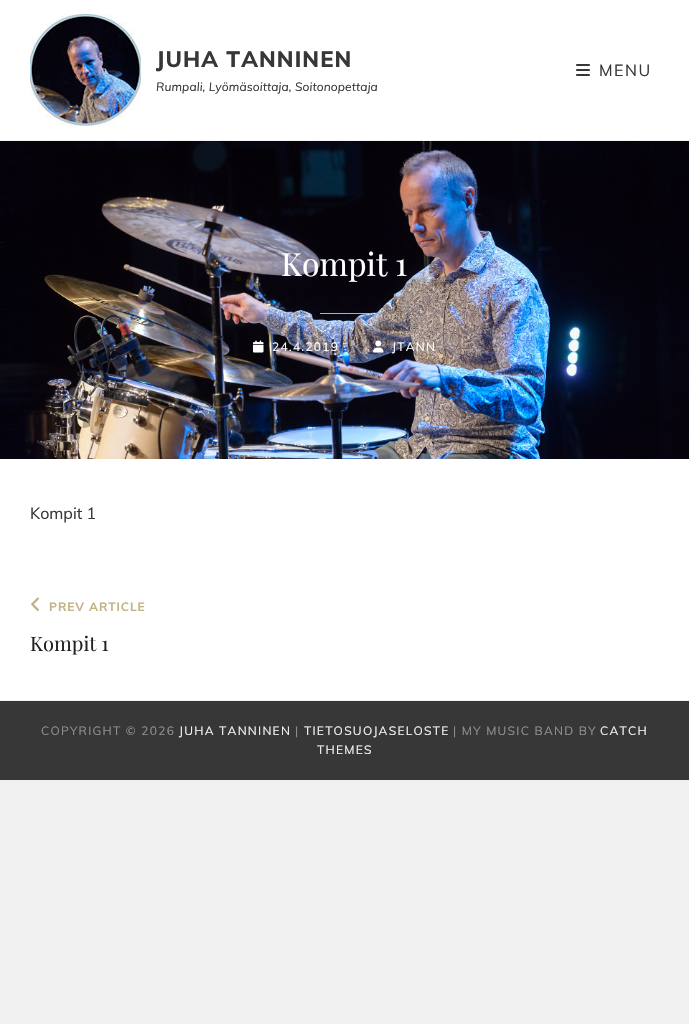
static SkFont makeFont(const char* family, int weight, float size, bool italic = false) {
  SkFontStyle style(weight, SkFontStyle::kNormal_Width,
    italic ? SkFontStyle::kItalic_Slant : SkFontStyle::kUpright_Slant);
  SkFont result(fontMgr->matchFamilyStyle(family, style), size);
  result.setSubpixel(true);
  return result;
}

static void text(SkCanvas* c, const char* s, float x, float y, const SkFont& font, SkColor color) {
  SkPaint ink(SkColor4f::FromColor(color));
  ink.setAntiAlias(true);
  c->drawString(s, x, y, font, ink);
}

static void spacedText(SkCanvas* c, const char* s, float x, float y, const SkFont& font, const SkPaint& ink, float letter, float word) {
  std::vector<SkGlyphID> glyphs(font.countText(s, strlen(s), SkTextEncoding::kUTF8));
  std::vector<float> xs(glyphs.size());
  font.textToGlyphs(s, strlen(s), SkTextEncoding::kUTF8, glyphs);
  font.getXPos(glyphs, xs, x);
  float extra = 0;
  for (size_t i = 0; i < glyphs.size(); i++) {
    xs[i] += extra;
    extra += letter + word * (glyphs[i] == font.unicharToGlyph(' '));
  }
  c->drawTextBlob(SkTextBlob::MakeFromPosHGlyphs(glyphs, xs, y, font), 0, 0, ink);
}

static void box(SkCanvas* c, float l, float t, float r, float b, SkColor color) {
  SkPaint ink(SkColor4f::FromColor(color));
  ink.setAntiAlias(true);
  c->drawRect(SkRect::MakeLTRB(l, t, r, b), ink);
}

static void picture(SkCanvas* c, const char* path, float l, float t, float r, float b) {
  auto image = SkImages::DeferredFromEncodedData(SkData::MakeFromFileName(path));
  c->drawImageRect(image, SkRect::MakeLTRB(l, t, r, b), SkSamplingOptions());
}

void draw(SkCanvas* c) {
  SkPaint paint;
  paint.setAntiAlias(true);
  c->clear(0xfff0f0f0);
  box(c, 0, 0, 689, 700, 0xffffffff);
  box(c, 0, 140, 689, 141, 0xfff4f4f4);
  picture(c, "img_01.png", 30, 14, 141, 126);
  SkFont face1 = makeFont("Muli", 800, 22);
  paint.setColor(0xff373737);
  spacedText(c, "JUHA TANNINEN", 156, 67, face1, paint, 1.1f, 0);
  SkFont face2 = makeFont("Muli", 400, 12, true);
  spacedText(c, "Rumpali, Lyömäsoittaja, Soitonopettaja", 156, 91, face2, paint, 0.1f, 0);
  picture(c, "img_02.png", 576, 64, 590, 76);
  SkFont face3 = makeFont("Muli", 400, 16);
  spacedText(c, "MENU", 599, 76, face3, paint, 1.5f, 0);
  picture(c, "img_03.png", 0, 141, 689, 459);
  SkFont face4 = makeFont("Playfair Display", 400, 32);
  text(c, "Kompit 1", 281, 276, face4, 0xffffffff);
  box(c, 320, 313, 370, 314, 0xffc0b283);
  picture(c, "img_04.png", 253, 340, 264, 353);
  SkFont face5 = makeFont("Muli", 400, 12);
  paint.setColor(0xffffffff);
  spacedText(c, "24.4.2019", 272, 351, face5, paint, 1.25f, 0);
  picture(c, "img_05.png", 373, 340, 384, 353);
  spacedText(c, "JTANN", 392, 351, face5, paint, 1.25f, 0);
  text(c, "Kompit 1", 30, 519, face3, 0xff373737);
  picture(c, "img_06.png", 31, 597, 39, 611);
  SkFont face6 = makeFont("Muli", 700, 12);
  paint.setColor(0xffc0b283);
  spacedText(c, "PREV ARTICLE", 49, 611, face6, paint, 0.9f, 0);
  SkFont face7 = makeFont("Playfair Display", 400, 20);
  text(c, "Kompit 1", 30, 651, face7, 0xff212121);
  box(c, 0, 701, 689, 780, 0xff373737);
  paint.setColor(0xff919191);
  spacedText(c, "COPYRIGHT © 2026", 41, 735, face5, paint, 1.25f, 0);
  paint.setColor(0xfff4f4f4);
  spacedText(c, "JUHA TANNINEN", 179, 735, face5, paint, 1.25f, 0);
  paint.setColor(0xff919191);
  spacedText(c, "|", 295, 735, face5, paint, 1.25f, 0);
  paint.setColor(0xfff4f4f4);
  spacedText(c, "TIETOSUOJASELOSTE", 304, 735, face5, paint, 1.25f, 0);
  paint.setColor(0xff919191);
  spacedText(c, "| MY MUSIC BAND BY", 453, 735, face5, paint, 1.25f, 0);
  paint.setColor(0xfff4f4f4);
  spacedText(c, "CATCH", 600, 735, face5, paint, 1.25f, 0);
  spacedText(c, "THEMES", 317, 754, face5, paint, 1.25f, 0);
}
